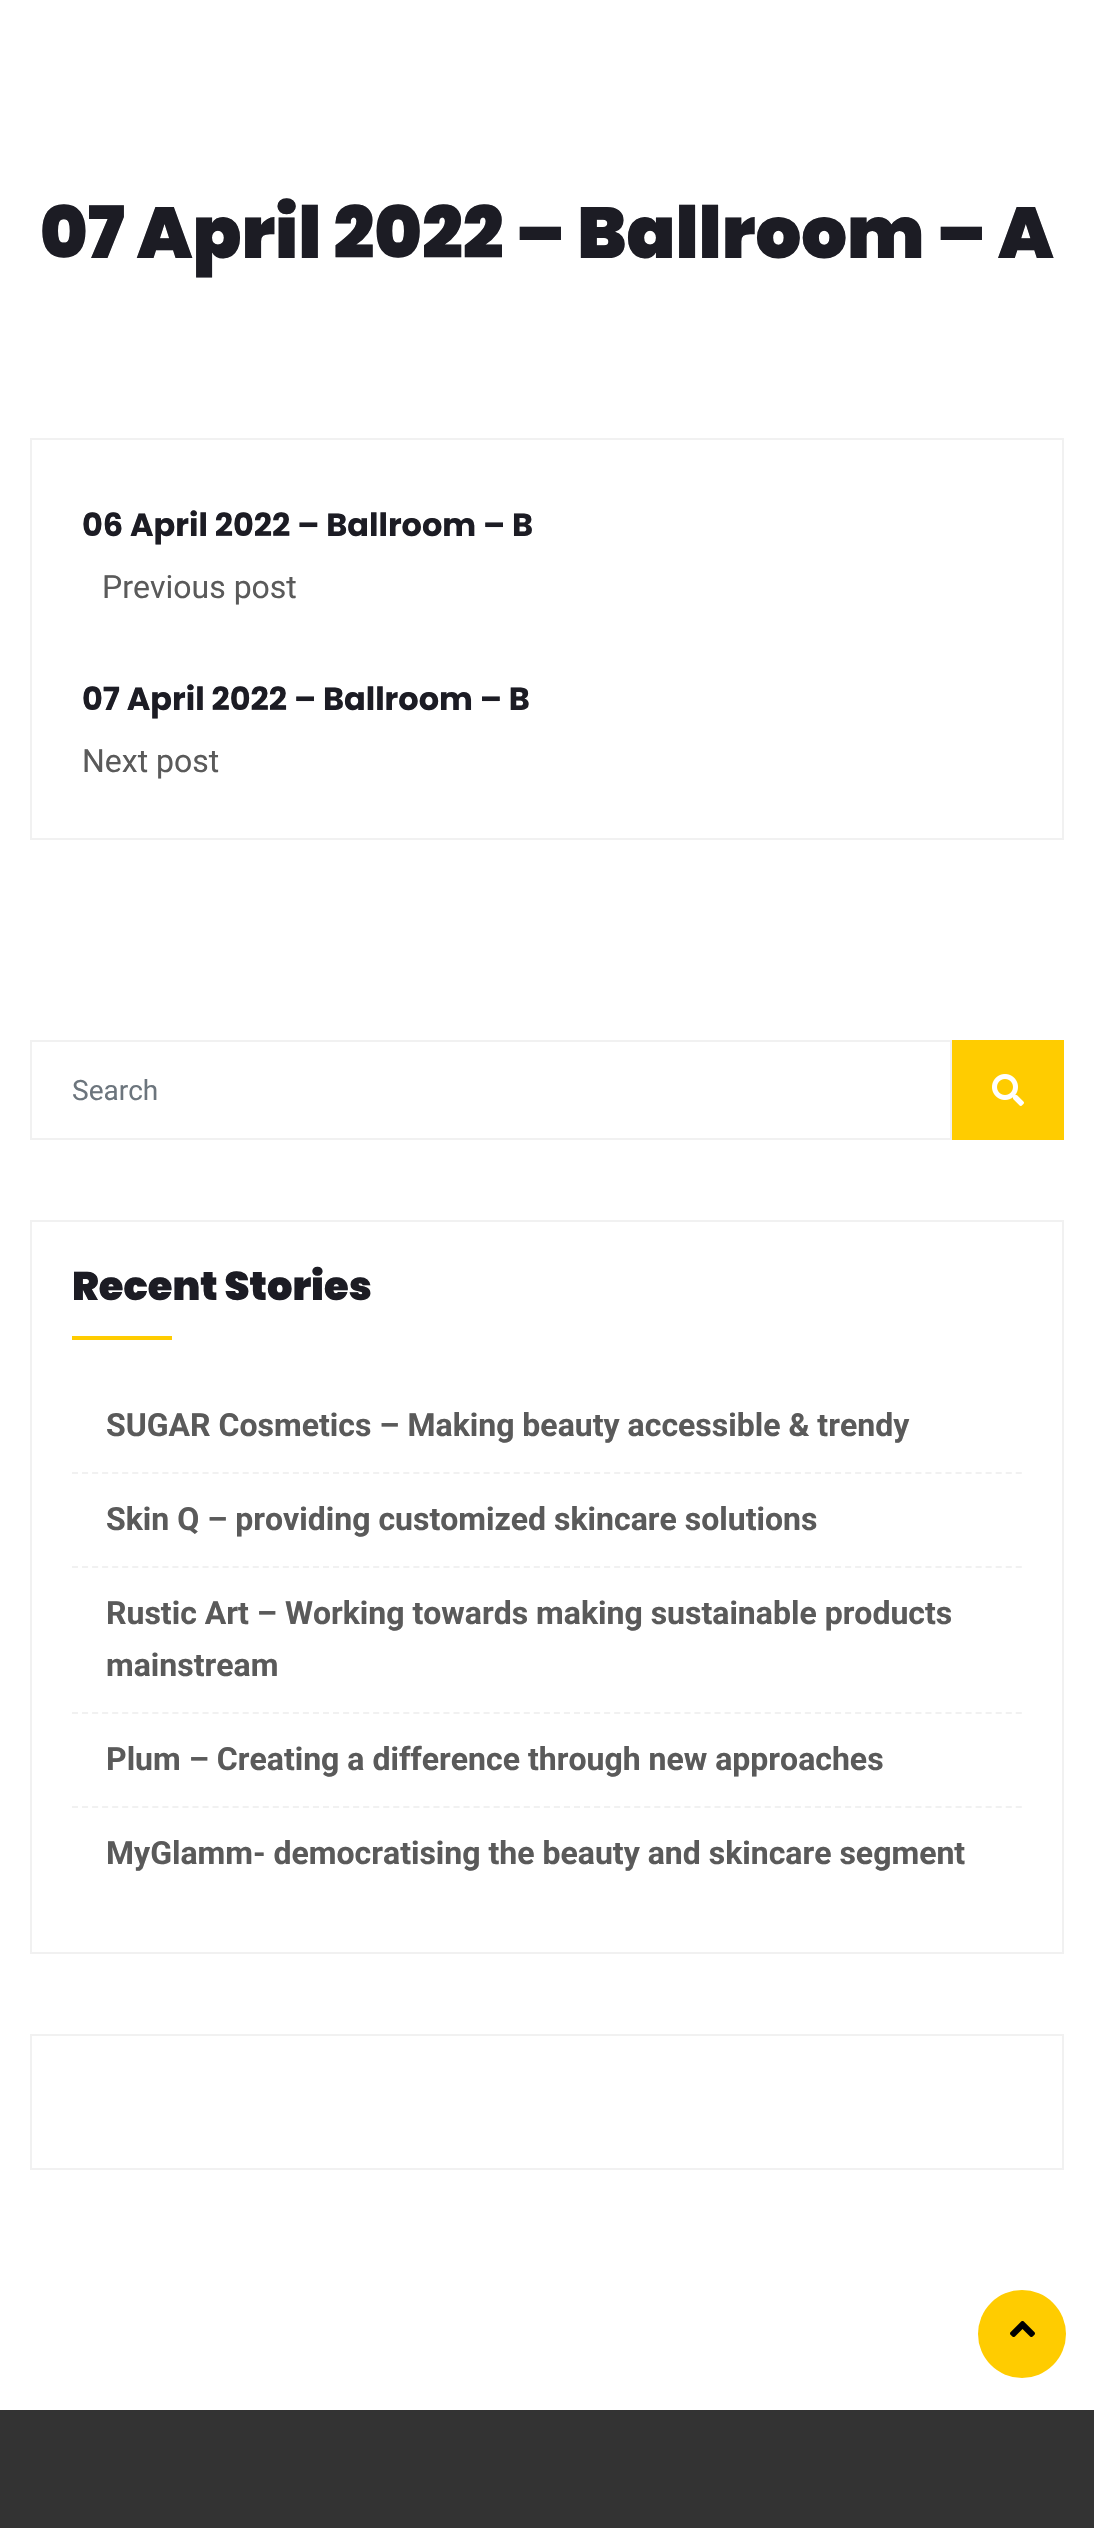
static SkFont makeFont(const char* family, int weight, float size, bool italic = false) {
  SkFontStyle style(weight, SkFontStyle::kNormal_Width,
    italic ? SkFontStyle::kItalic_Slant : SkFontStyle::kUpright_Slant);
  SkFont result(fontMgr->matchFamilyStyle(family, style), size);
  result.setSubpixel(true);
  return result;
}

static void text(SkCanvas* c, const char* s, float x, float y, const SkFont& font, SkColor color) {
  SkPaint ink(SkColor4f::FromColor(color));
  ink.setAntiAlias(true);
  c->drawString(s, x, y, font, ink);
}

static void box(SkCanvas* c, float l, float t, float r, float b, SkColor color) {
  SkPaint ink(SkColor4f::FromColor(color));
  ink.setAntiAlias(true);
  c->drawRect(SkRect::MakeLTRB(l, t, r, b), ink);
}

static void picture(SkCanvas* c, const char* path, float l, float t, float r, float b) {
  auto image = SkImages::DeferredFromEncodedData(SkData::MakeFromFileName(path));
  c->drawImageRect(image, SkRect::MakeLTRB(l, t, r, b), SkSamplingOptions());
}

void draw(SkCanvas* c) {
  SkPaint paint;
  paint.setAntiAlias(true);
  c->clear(0xffffffff);
  SkFont face1 = makeFont("Poppins", 900, 72);
  text(c, "07 April 2022 – Ballroom – A", 40, 258, face1, 0xff1c1c24);
  paint.setStyle(SkPaint::kStroke_Style);
  paint.setStrokeWidth(2);
  paint.setColor(0xfff1f1f1);
  c->drawRect(SkRect::MakeLTRB(31, 439, 1063, 839), paint);
  SkFont face2 = makeFont("Poppins", 700, 32);
  text(c, "06 April 2022 – Ballroom – B", 82, 536, face2, 0xff1c1c24);
  SkFont face3 = makeFont("Roboto", 400, 32);
  text(c, "Previous post", 102, 598, face3, 0xff5a5a5a);
  text(c, "07 April 2022 – Ballroom – B", 82, 710, face2, 0xff1c1c24);
  text(c, "Next post", 82, 772, face3, 0xff5a5a5a);
  c->drawRect(SkRect::MakeLTRB(31, 1041, 951, 1139), paint);
  SkFont face4 = makeFont("Roboto", 400, 28);
  text(c, "Search", 72, 1100, face4, 0xff6c757d);
  box(c, 952, 1040, 1064, 1140, 0xffffcc00);
  picture(c, "img_01.png", 992, 1074, 1024, 1106);
  c->drawRect(SkRect::MakeLTRB(31, 1221, 1063, 1953), paint);
  SkFont face5 = makeFont("Poppins", 900, 40);
  text(c, "Recent Stories", 72, 1300, face5, 0xff1c1c24);
  box(c, 72, 1336, 172, 1340, 0xffffcc00);
  paint.setPathEffect(SkDashPathEffect::Make({{6, 4.04f}}, 0));
  c->drawPath(SkPathBuilder().moveTo(72, 1473).lineTo(1022, 1473).detach(), paint);
  paint.setPathEffect(nullptr);
  SkFont face6 = makeFont("Roboto", 700, 32);
  text(c, "SUGAR Cosmetics – Making beauty accessible & trendy", 106, 1436, face6, 0xff5a5a5a);
  paint.setPathEffect(SkDashPathEffect::Make({{6, 4.04f}}, 0));
  c->drawPath(SkPathBuilder().moveTo(72, 1567).lineTo(1022, 1567).detach(), paint);
  paint.setPathEffect(nullptr);
  text(c, "Skin Q – providing customized skincare solutions", 106, 1530, face6, 0xff5a5a5a);
  paint.setPathEffect(SkDashPathEffect::Make({{6, 4.04f}}, 0));
  c->drawPath(SkPathBuilder().moveTo(72, 1713).lineTo(1022, 1713).detach(), paint);
  paint.setPathEffect(nullptr);
  text(c, "Rustic Art – Working towards making sustainable products", 106, 1624, face6, 0xff5a5a5a);
  text(c, "mainstream", 106, 1676, face6, 0xff5a5a5a);
  paint.setPathEffect(SkDashPathEffect::Make({{6, 4.04f}}, 0));
  c->drawPath(SkPathBuilder().moveTo(72, 1807).lineTo(1022, 1807).detach(), paint);
  paint.setPathEffect(nullptr);
  text(c, "Plum – Creating a difference through new approaches", 106, 1770, face6, 0xff5a5a5a);
  text(c, "MyGlamm- democratising the beauty and skincare segment", 106, 1864, face6, 0xff5a5a5a);
  c->drawRect(SkRect::MakeLTRB(31, 2035, 1063, 2169), paint);
  paint.setStyle(SkPaint::kFill_Style);
  paint.setColor(0xffffcc00);
  c->drawCircle(1022, 2334, 44, paint);
  picture(c, "img_02.png", 1010, 2321, 1035, 2337);
  box(c, 0, 2410, 1094, 2528, 0xff333333);
}
